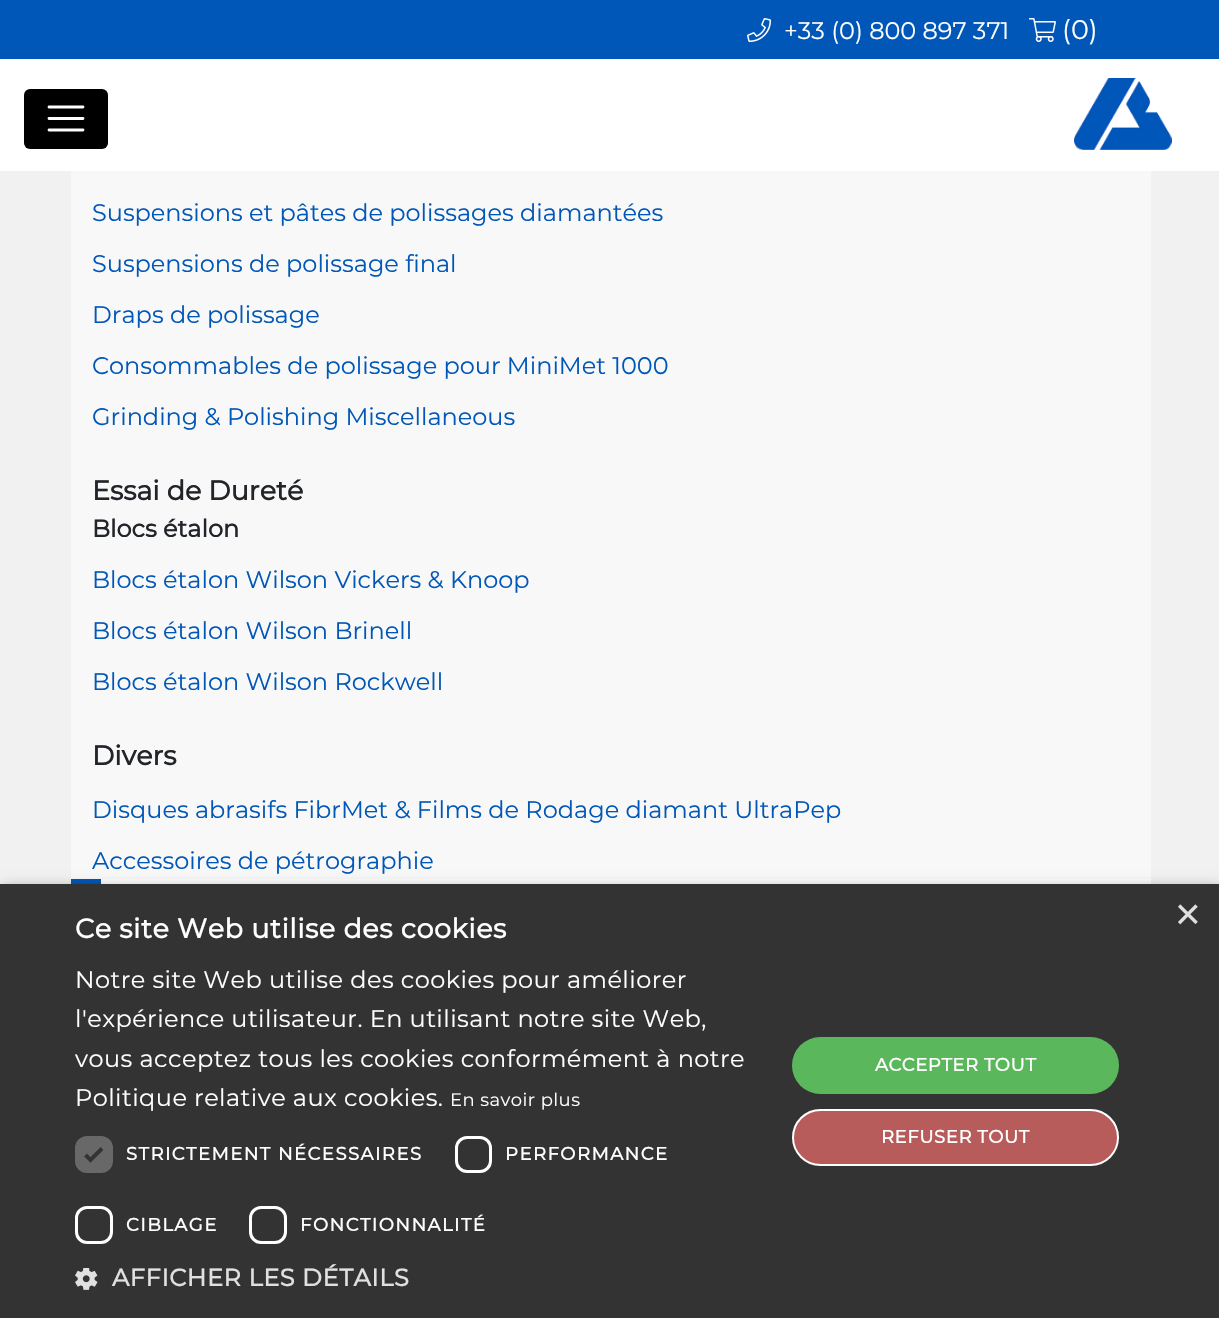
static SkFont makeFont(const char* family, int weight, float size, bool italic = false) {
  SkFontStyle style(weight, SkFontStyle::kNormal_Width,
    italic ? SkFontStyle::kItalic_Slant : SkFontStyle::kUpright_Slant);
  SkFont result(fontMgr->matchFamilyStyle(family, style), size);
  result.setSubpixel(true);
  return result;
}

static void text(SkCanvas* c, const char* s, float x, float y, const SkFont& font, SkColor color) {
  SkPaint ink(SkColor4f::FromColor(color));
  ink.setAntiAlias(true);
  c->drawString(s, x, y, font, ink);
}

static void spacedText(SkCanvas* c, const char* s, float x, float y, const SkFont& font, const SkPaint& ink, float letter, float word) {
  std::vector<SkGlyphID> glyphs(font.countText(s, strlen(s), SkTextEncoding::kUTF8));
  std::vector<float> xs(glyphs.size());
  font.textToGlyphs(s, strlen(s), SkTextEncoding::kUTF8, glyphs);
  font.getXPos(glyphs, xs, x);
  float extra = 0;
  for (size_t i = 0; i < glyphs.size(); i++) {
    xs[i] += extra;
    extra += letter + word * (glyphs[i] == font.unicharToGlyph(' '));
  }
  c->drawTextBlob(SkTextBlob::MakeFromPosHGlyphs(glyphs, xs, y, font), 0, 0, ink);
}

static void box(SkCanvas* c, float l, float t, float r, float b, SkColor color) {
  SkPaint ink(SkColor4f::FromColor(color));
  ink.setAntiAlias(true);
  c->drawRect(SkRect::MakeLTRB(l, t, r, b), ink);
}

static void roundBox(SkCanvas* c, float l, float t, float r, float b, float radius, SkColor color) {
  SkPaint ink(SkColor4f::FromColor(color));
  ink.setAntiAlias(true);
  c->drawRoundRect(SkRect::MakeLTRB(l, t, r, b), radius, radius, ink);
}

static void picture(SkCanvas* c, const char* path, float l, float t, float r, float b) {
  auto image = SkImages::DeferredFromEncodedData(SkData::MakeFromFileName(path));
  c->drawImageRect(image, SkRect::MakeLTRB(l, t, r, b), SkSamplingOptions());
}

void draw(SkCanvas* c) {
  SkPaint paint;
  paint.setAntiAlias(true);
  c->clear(0xfff1f1f1);
  box(c, 0, 0, 1219, 59, 0xff0057b8);
  picture(c, "img_01.png", 747, 18, 772, 42);
  SkFont face1 = makeFont("Montserrat", 100, 24);
  text(c, "+33 (0) 800 897 371", 784, 39, face1, 0xffffffff);
  picture(c, "img_02.png", 1029, 18, 1056, 42);
  SkFont face2 = makeFont("Montserrat", 100, 27);
  text(c, "(0)", 1062, 39, face2, 0xffffffff);
  box(c, 0, 59, 1219, 171, 0xffffffff);
  roundBox(c, 24, 89, 108, 149, 6, 0xff000000);
  paint.setStyle(SkPaint::kStroke_Style);
  paint.setStrokeWidth(2.8f);
  paint.setStrokeCap(SkPaint::kRound_Cap);
  paint.setColor(0xffffffff);
  c->drawPath(SkPathBuilder().moveTo(49, 107).lineTo(83, 107).moveTo(49, 118.5f).lineTo(83, 118.5f).moveTo(49, 130).lineTo(83, 130).detach(), paint);
  picture(c, "img_03.png", 1074, 78, 1172, 150);
  box(c, 101, 879, 1151, 884, 0xffffffff);
  box(c, 71, 171, 1151, 879, 0xfff8f8f8);
  text(c, "Suspensions et pâtes de polissages diamantées", 92, 221, face1, 0xff0057b8);
  text(c, "Suspensions de polissage final", 92, 272, face1, 0xff0057b8);
  text(c, "Draps de polissage", 92, 323, face1, 0xff0057b8);
  text(c, "Consommables de polissage pour MiniMet 1000", 92, 374, face1, 0xff0057b8);
  text(c, "Grinding & Polishing Miscellaneous", 92, 425, face1, 0xff0057b8);
  SkFont face3 = makeFont("Montserrat", 700, 27);
  text(c, "Essai de Dureté", 92, 500, face3, 0xff212529);
  SkFont face4 = makeFont("Montserrat", 700, 24);
  text(c, "Blocs étalon", 92, 537, face4, 0xff212529);
  text(c, "Blocs étalon Wilson Vickers & Knoop", 92, 588, face1, 0xff0057b8);
  text(c, "Blocs étalon Wilson Brinell", 92, 639, face1, 0xff0057b8);
  text(c, "Blocs étalon Wilson Rockwell", 92, 690, face1, 0xff0057b8);
  text(c, "Divers", 92, 765, face3, 0xff212529);
  text(c, "Disques abrasifs FibrMet & Films de Rodage diamant UltraPep", 92, 818, face1, 0xff0057b8);
  text(c, "Accessoires de pétrographie", 92, 869, face1, 0xff0057b8);
  box(c, 71, 879, 101, 884, 0xff0057b8);
  paint.setStyle(SkPaint::kFill_Style);
  paint.setColor(0x59000000);
  paint.setMaskFilter(SkMaskFilter::MakeBlur(kNormal_SkBlurStyle, 6));
  c->drawRect(SkRect::MakeLTRB(2, 887, 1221, 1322), paint);
  paint.setMaskFilter(nullptr);
  box(c, 0, 884, 1219, 1318, 0xff333333);
  SkFont face5 = makeFont("Liberation Sans", 400, 44);
  text(c, "×", 1175, 929, face5, 0xffe0e0e0);
  paint.setColor(0xffffffff);
  spacedText(c, "Ce site Web utilise des cookies", 75, 938, face3, paint, 0.6f, 0);
  spacedText(c, "Notre site Web utilise des cookies pour améliorer", 75, 988, face1, paint, 0.45f, 0);
  spacedText(c, "l'expérience utilisateur. En utilisant notre site Web,", 75, 1027, face1, paint, 0.45f, 0);
  spacedText(c, "vous acceptez tous les cookies conformément à notre", 75, 1067, face1, paint, 0.45f, 0);
  spacedText(c, "Politique relative aux cookies.", 75, 1106, face1, paint, 0.45f, 0);
  SkFont face6 = makeFont("Montserrat", 100, 18);
  spacedText(c, "En savoir plus", 450, 1106, face6, paint, 0.45f, 0);
  roundBox(c, 75, 1136, 113, 1173, 12, 0xff686868);
  paint.setStyle(SkPaint::kStroke_Style);
  paint.setStrokeWidth(3.9f);
  paint.setStrokeCap(SkPaint::kButt_Cap);
  paint.setColor(0xff333333);
  c->drawPath(SkPathBuilder().moveTo(85.5f, 1155).lineTo(90.5f, 1160).lineTo(102, 1148.5f).detach(), paint);
  SkFont face7 = makeFont("Montserrat", 700, 18);
  paint.setStyle(SkPaint::kFill_Style);
  paint.setColor(0xffffffff);
  spacedText(c, "STRICTEMENT NÉCESSAIRES", 126, 1160, face7, paint, 1.5f, 0);
  paint.setStyle(SkPaint::kStroke_Style);
  paint.setStrokeWidth(3);
  c->drawRoundRect(SkRect::MakeLTRB(456.5f, 1137.5f, 490.5f, 1171.5f), 10.5f, 10.5f, paint);
  paint.setStyle(SkPaint::kFill_Style);
  spacedText(c, "PERFORMANCE", 505, 1160, face7, paint, 1.5f, 0);
  paint.setStyle(SkPaint::kStroke_Style);
  c->drawRoundRect(SkRect::MakeLTRB(76.5f, 1207.5f, 111.5f, 1242.5f), 10.5f, 10.5f, paint);
  paint.setStyle(SkPaint::kFill_Style);
  spacedText(c, "CIBLAGE", 126, 1231, face7, paint, 1.5f, 0);
  paint.setStyle(SkPaint::kStroke_Style);
  c->drawRoundRect(SkRect::MakeLTRB(250.5f, 1207.5f, 285.5f, 1242.5f), 10.5f, 10.5f, paint);
  paint.setStyle(SkPaint::kFill_Style);
  spacedText(c, "FONCTIONNALITÉ", 300, 1231, face7, paint, 1.5f, 0);
  picture(c, "img_04.png", 75, 1268, 98, 1290);
  paint.setColor(0xffe0e0e0);
  spacedText(c, "AFFICHER LES DÉTAILS", 112, 1286, face4, paint, 0.6f, 0);
  roundBox(c, 792, 1037, 1119, 1094, 28.5f, 0xff5bb75b);
  paint.setColor(0xffffffff);
  spacedText(c, "ACCEPTER TOUT", 875, 1071, face7, paint, 0.6f, 0);
  paint.setColor(0xffb75b5b);
  c->drawRoundRect(SkRect::MakeLTRB(793, 1110, 1118, 1165), 27.5f, 27.5f, paint);
  paint.setStyle(SkPaint::kStroke_Style);
  paint.setStrokeWidth(2);
  paint.setColor(0xffffffff);
  c->drawRoundRect(SkRect::MakeLTRB(793, 1110, 1118, 1165), 27.5f, 27.5f, paint);
  paint.setStyle(SkPaint::kFill_Style);
  spacedText(c, "REFUSER TOUT", 881, 1143, face7, paint, 0.6f, 0);
}
